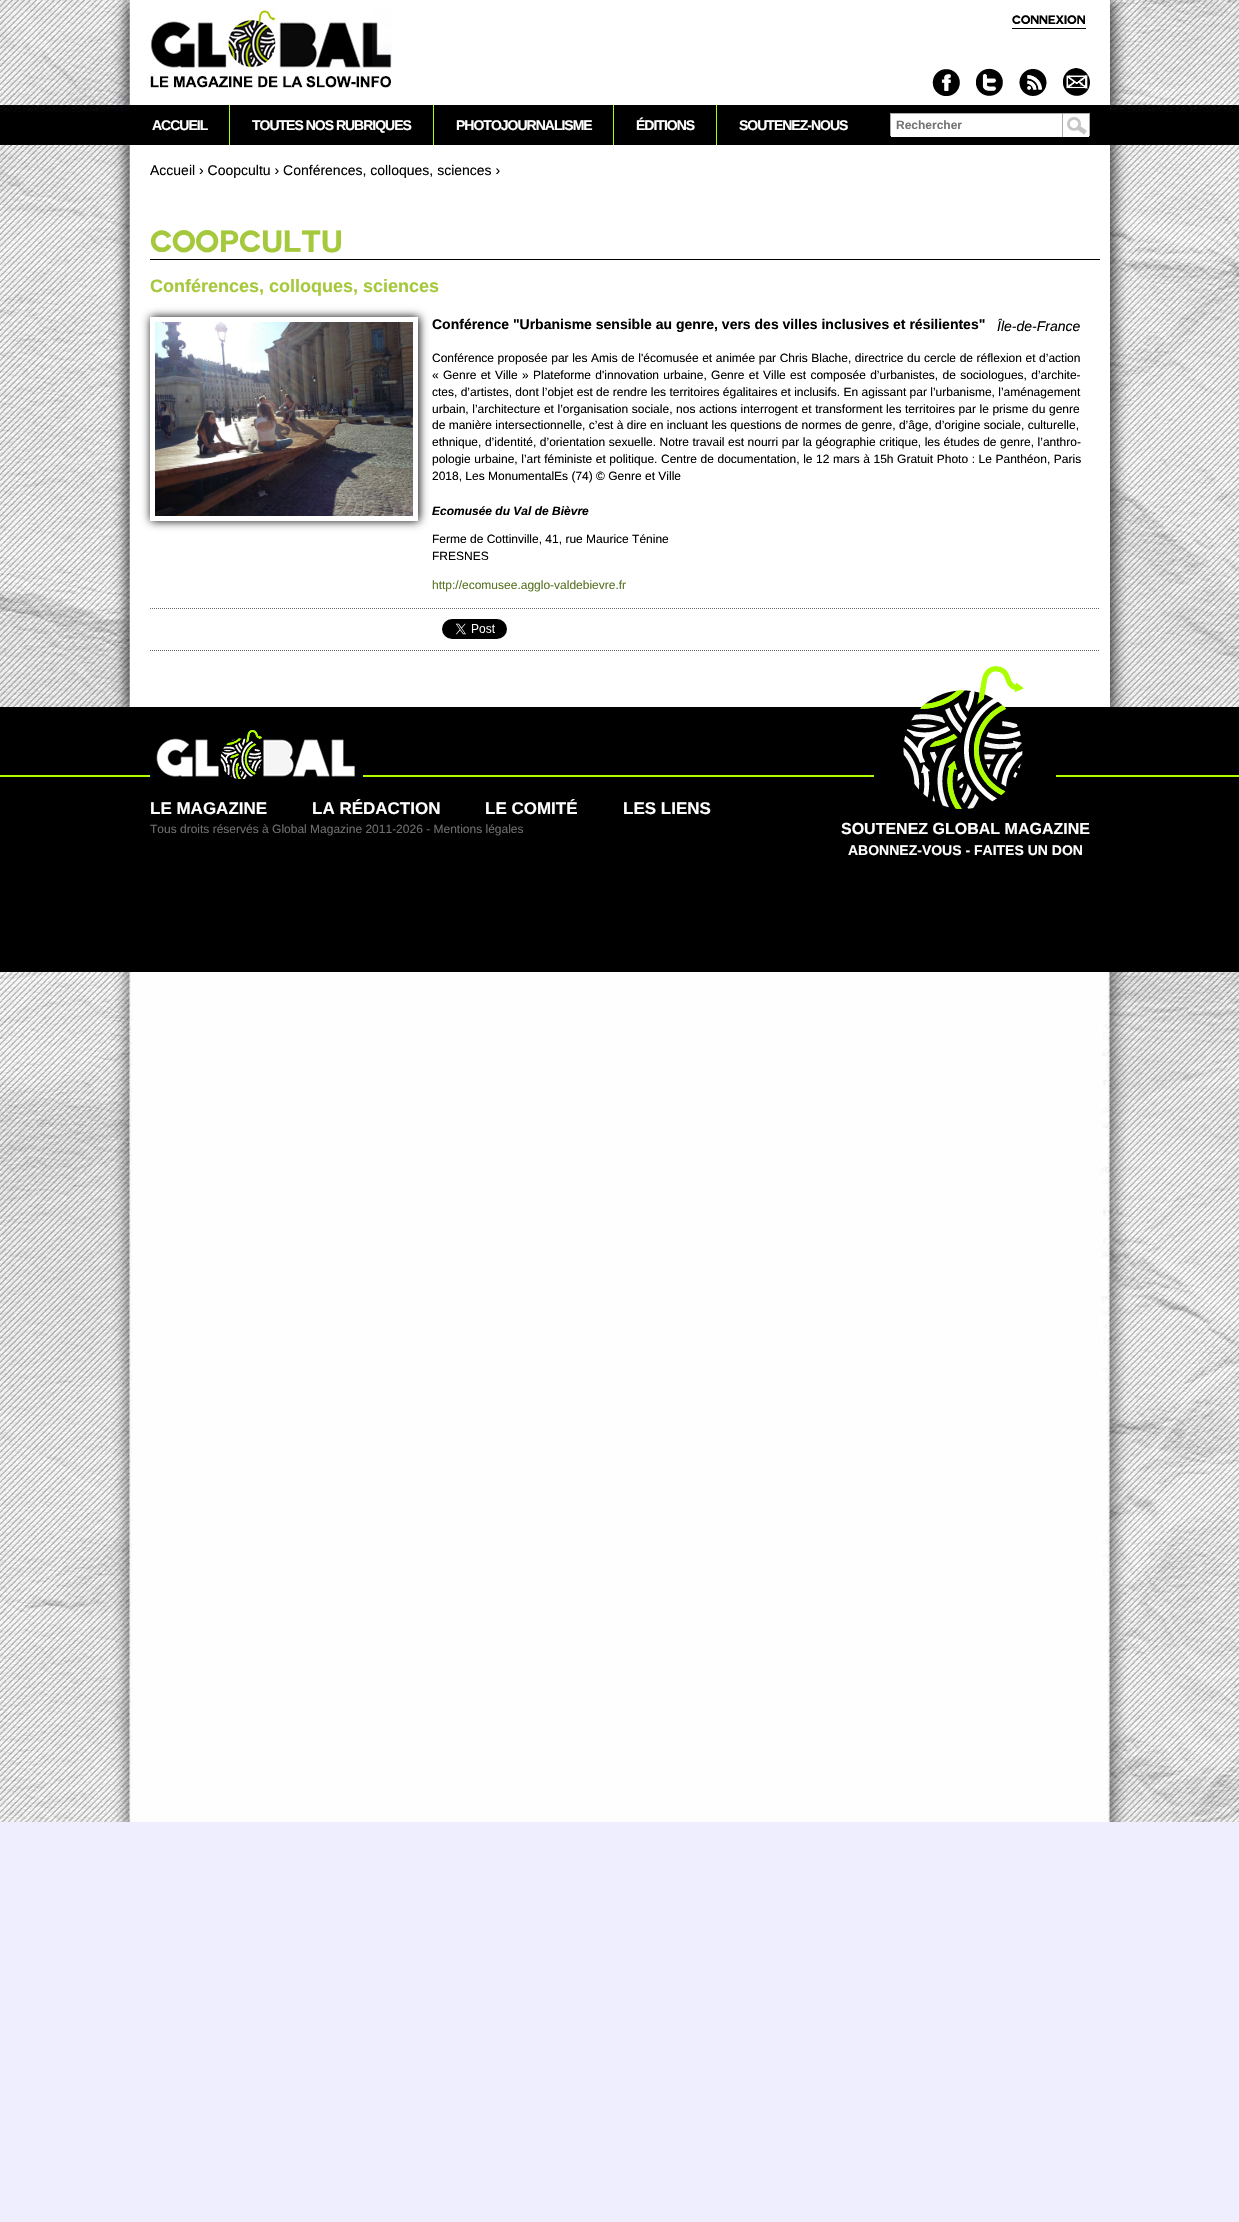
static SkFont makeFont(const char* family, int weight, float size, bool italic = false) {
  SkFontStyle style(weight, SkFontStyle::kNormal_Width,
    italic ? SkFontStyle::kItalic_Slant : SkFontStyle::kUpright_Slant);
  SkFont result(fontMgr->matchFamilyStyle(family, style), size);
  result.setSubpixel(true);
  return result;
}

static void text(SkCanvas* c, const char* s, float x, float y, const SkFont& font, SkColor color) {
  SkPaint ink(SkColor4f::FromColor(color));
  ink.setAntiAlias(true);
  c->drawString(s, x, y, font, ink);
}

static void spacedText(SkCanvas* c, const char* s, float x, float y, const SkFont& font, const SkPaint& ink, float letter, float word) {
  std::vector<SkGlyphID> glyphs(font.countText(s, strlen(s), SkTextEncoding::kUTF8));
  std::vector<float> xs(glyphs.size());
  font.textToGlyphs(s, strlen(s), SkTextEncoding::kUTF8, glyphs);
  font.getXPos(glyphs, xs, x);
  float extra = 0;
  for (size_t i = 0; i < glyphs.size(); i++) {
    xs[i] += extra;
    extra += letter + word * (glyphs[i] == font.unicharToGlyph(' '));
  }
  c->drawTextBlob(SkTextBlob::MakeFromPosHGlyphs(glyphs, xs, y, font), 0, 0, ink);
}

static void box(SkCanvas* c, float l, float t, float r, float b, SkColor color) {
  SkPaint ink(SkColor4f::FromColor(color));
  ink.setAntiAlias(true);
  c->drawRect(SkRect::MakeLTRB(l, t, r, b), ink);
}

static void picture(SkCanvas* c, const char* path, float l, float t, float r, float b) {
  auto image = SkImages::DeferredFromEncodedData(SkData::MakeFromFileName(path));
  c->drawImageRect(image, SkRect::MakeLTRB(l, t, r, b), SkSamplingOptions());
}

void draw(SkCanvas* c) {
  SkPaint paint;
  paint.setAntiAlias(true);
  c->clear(0xffeeeeff);
  picture(c, "img_01.png", 0, 0, 1239, 1822);
  paint.setColor(0x80000000);
  paint.setMaskFilter(SkMaskFilter::MakeBlur(kNormal_SkBlurStyle, 7));
  c->drawRect(SkRect::MakeLTRB(130, 0, 1110, 105), paint);
  paint.setMaskFilter(nullptr);
  box(c, 0, 775, 1239, 777, 0xffacff00);
  picture(c, "img_10.png", 0, 707, 1239, 972);
  paint.setMaskFilter(SkMaskFilter::MakeBlur(kNormal_SkBlurStyle, 7));
  c->drawRect(SkRect::MakeLTRB(130, 105, 1110, 707), paint);
  paint.setMaskFilter(nullptr);
  box(c, 130, 0, 1110, 105, 0xffffffff);
  picture(c, "img_02.png", 150, 8, 392, 88);
  SkFont face1 = makeFont("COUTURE", 700, 12);
  text(c, "CONNEXION", 1012, 24, face1, 0xff000000);
  box(c, 1012, 28, 1086, 29, 0xff000000);
  picture(c, "img_03.png", 932, 69, 960, 96);
  picture(c, "img_04.png", 976, 68, 1003, 96);
  picture(c, "img_05.png", 1019, 69, 1047, 96);
  picture(c, "img_06.png", 1063, 68, 1090, 96);
  box(c, 130, 145, 1110, 707, 0xffffffff);
  box(c, 130, 105, 1110, 145, 0xff000000);
  SkFont face2 = makeFont("Liberation Sans", 700, 14);
  paint.setColor(0xffffffff);
  spacedText(c, "ACCUEIL", 152, 130, face2, paint, -1, 0);
  box(c, 229, 105, 230, 145, 0xffacff00);
  spacedText(c, "TOUTES NOS RUBRIQUES", 252, 130, face2, paint, -1, 0);
  box(c, 433, 105, 434, 145, 0xffacff00);
  spacedText(c, "PHOTOJOURNALISME", 456, 130, face2, paint, -1, 0);
  box(c, 613, 105, 614, 145, 0xffacff00);
  spacedText(c, "ÉDITIONS", 636, 130, face2, paint, -1, 0);
  box(c, 716, 105, 717, 145, 0xffacff00);
  spacedText(c, "SOUTENEZ-NOUS", 739, 130, face2, paint, -1, 0);
  paint.setStyle(SkPaint::kStroke_Style);
  paint.setStrokeWidth(1);
  paint.setColor(0xffababab);
  c->drawRect(SkRect::MakeLTRB(890.5f, 113.5f, 1089.5f, 135.5f), paint);
  box(c, 891, 114, 1089, 137, 0xffffffff);
  SkFont face3 = makeFont("Liberation Sans", 700, 12);
  text(c, "Rechercher", 896, 129, face3, 0xff757575);
  picture(c, "img_07.png", 1067, 117, 1087, 135);
  box(c, 1062, 114, 1063, 137, 0xffababab);
  SkFont face4 = makeFont("Liberation Sans", 400, 14);
  text(c, "Accueil › Coopcultu › Conférences, colloques, sciences ›", 150, 175, face4, 0xff000000);
  box(c, 150, 259, 1100, 260, 0xff000000);
  SkFont face5 = makeFont("COUTURE", 700, 30);
  text(c, "COOPCULTU", 150, 252, face5, 0xffa6c83c);
  SkFont face6 = makeFont("Liberation Sans", 700, 18);
  text(c, "Conférences, colloques, sciences", 150, 292, face6, 0xffa6c83c);
  c->save();
  c->clipPath(SkPathBuilder(SkPathFillType::kEvenOdd).moveTo(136, 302).lineTo(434, 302).lineTo(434, 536).lineTo(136, 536).close().moveTo(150, 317).lineTo(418, 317).lineTo(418, 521).lineTo(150, 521).close().detach(), true);
  paint.setStyle(SkPaint::kFill_Style);
  paint.setColor(0xff000000);
  paint.setMaskFilter(SkMaskFilter::MakeBlur(kNormal_SkBlurStyle, 4.5f));
  c->drawRect(SkRect::MakeLTRB(151, 317, 419, 521), paint);
  paint.setMaskFilter(nullptr);
  c->restore();
  picture(c, "img_08.png", 155, 322, 413, 516);
  text(c, "Conférence \"Urbanisme sensible au genre, vers des villes inclusives et résilientes\"", 432, 329, face2, 0xff000000);
  SkFont face7 = makeFont("Liberation Sans", 400, 14, true);
  text(c, "Île-de-France", 997, 331, face7, 0xff000000);
  SkFont face8 = makeFont("Liberation Sans", 400, 12);
  spacedText(c, "Conférence proposée par les Amis de l'écomusée et animée par Chris Blache, directrice du cercle de réflexion et d’action", 432, 362, face8, paint, 0, 0.25f);
  spacedText(c, "« Genre et Ville »", 432, 379, face8, paint, 0, 1);
  spacedText(c, "Plateforme d'innovation urbaine, Genre et Ville est composée d’urbanistes, de sociologues, d’archite-", 533, 379, face8, paint, 0, 1);
  text(c, "ctes, d’artistes, dont l’objet est de rendre les territoires égalitaires et inclusifs. En agissant par l’urbanisme, l’aménagement", 432, 396, face8, 0xff000000);
  spacedText(c, "urbain, l’architecture et l’organisation sociale, nos actions interrogent et transforment les territoires par le prisme du genre", 432, 413, face8, paint, 0, 0.25f);
  text(c, "de manière intersectionnelle, c’est à dire en incluant les questions de normes de genre, d’âge, d’origine sociale, culturelle,", 432, 429, face8, 0xff000000);
  spacedText(c, "ethnique, d’identité, d’orientation sexuelle. Notre travail est nourri par la géographie critique, les études de genre, l’anthro-", 432, 446, face8, paint, 0, 0.2f);
  spacedText(c, "pologie urbaine, l’art féministe et politique. Centre de documentation, le 12 mars à 15h Gratuit Photo : Le Panthéon, Paris", 432, 463, face8, paint, 0, 0.25f);
  text(c, "2018, Les MonumentalEs (74) © Genre et Ville", 432, 480, face8, 0xff000000);
  SkFont face9 = makeFont("Liberation Sans", 700, 12, true);
  text(c, "Ecomusée du Val de Bièvre", 432, 515, face9, 0xff000000);
  text(c, "Ferme de Cottinville, 41, rue Maurice Ténine", 432, 543, face8, 0xff000000);
  text(c, "FRESNES", 432, 560, face8, 0xff000000);
  text(c, "http://ecomusee.agglo-valdebievre.fr", 432, 589, face8, 0xff597326);
  paint.setStyle(SkPaint::kStroke_Style);
  paint.setColor(0xff666666);
  paint.setPathEffect(SkDashPathEffect::Make({{1, 1}}, 0));
  c->drawPath(SkPathBuilder().moveTo(150, 608.5f).lineTo(1099, 608.5f).detach(), paint);
  paint.setPathEffect(nullptr);
  paint.setPathEffect(SkDashPathEffect::Make({{1, 1}}, 0));
  c->drawPath(SkPathBuilder().moveTo(150, 650.5f).lineTo(1099, 650.5f).detach(), paint);
  paint.setPathEffect(nullptr);
  picture(c, "img_09.png", 442, 619, 507, 639);
  box(c, 227, 730, 262, 779, 0xffacff00);
  picture(c, "img_11.png", 150, 707, 363, 779);
  SkFont face10 = makeFont("Liberation Sans", 700, 17);
  text(c, "LE MAGAZINE", 150, 814, face10, 0xffffffff);
  text(c, "LA RÉDACTION", 312, 814, face10, 0xffffffff);
  text(c, "LE COMITÉ", 485, 814, face10, 0xffffffff);
  text(c, "LES LIENS", 623, 814, face10, 0xffffffff);
  text(c, "Tous droits réservés à Global Magazine 2011-2026 - Mentions légales", 150, 833, face8, 0xff6e6e6e);
  box(c, 921, 666, 1023, 809, 0xffacff00);
  picture(c, "img_12.png", 874, 665, 1056, 813);
  SkFont face11 = makeFont("Liberation Sans", 700, 16);
  text(c, "SOUTENEZ GLOBAL MAGAZINE", 841, 834, face11, 0xffffffff);
  text(c, "ABONNEZ-VOUS - FAITES UN DON", 848, 855, face2, 0xffffffff);
}
